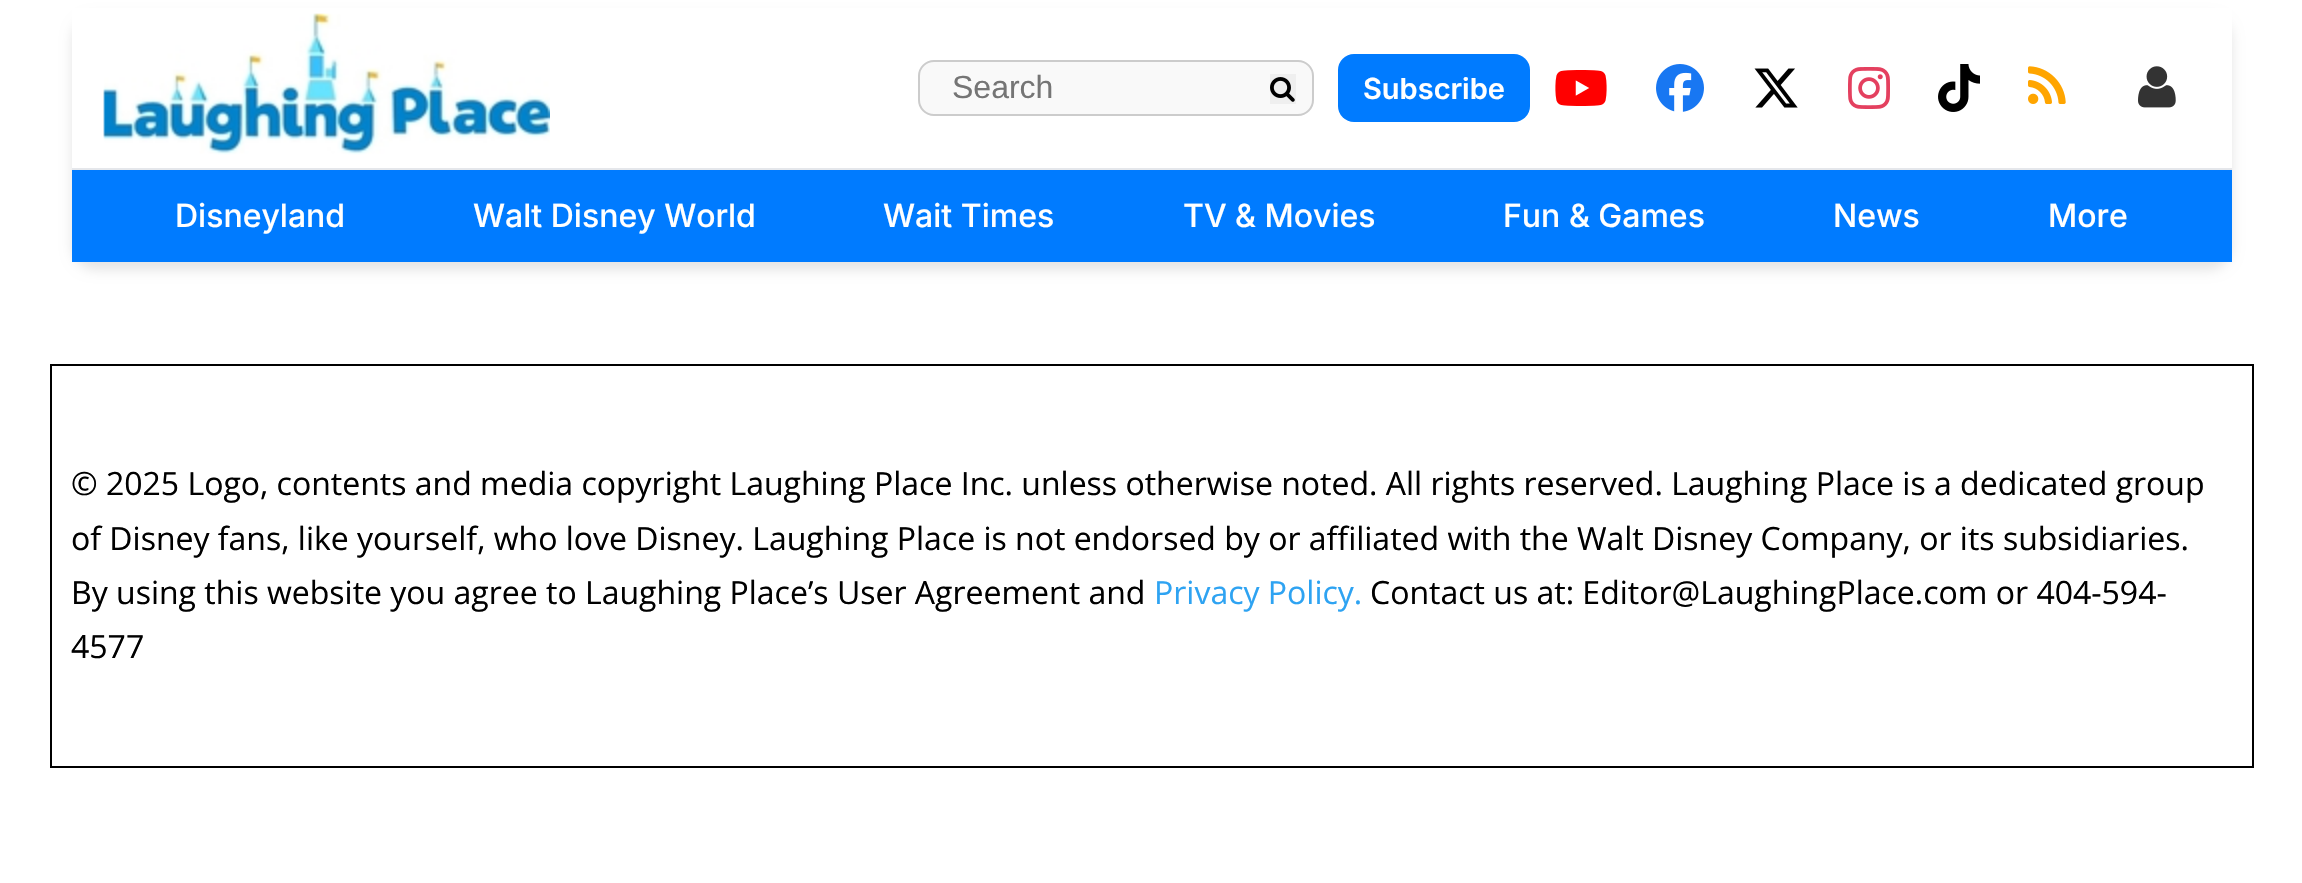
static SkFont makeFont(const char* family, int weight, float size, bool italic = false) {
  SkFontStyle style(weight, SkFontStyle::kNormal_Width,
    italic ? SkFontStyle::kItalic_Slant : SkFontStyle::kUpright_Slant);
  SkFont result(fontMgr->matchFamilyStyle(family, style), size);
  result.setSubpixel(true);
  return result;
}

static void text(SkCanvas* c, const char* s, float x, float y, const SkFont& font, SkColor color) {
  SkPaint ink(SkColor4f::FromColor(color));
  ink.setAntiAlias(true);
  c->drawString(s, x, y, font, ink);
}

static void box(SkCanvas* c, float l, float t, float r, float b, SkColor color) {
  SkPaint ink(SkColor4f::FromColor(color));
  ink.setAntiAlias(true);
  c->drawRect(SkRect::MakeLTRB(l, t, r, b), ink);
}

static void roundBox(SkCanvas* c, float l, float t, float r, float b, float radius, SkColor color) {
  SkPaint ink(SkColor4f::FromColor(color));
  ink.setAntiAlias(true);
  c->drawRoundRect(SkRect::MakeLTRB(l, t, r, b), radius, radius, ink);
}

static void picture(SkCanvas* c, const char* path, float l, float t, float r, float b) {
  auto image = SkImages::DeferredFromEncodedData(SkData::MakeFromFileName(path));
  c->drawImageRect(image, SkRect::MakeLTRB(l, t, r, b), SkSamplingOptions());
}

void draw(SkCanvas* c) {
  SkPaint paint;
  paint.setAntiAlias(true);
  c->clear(0xffffffff);
  paint.setColor(0x1a000000);
  paint.setMaskFilter(SkMaskFilter::MakeBlur(kNormal_SkBlurStyle, 6));
  c->drawRoundRect(SkRect::MakeLTRB(72, 16, 2232, 270), 24, 24, paint);
  paint.setMaskFilter(nullptr);
  box(c, 72, 8, 2232, 168, 0xffffffff);
  box(c, 72, 168, 2232, 170, 0xffe5e7eb);
  picture(c, "img_01.png", 103, 13, 550, 155);
  paint.setColor(0xfff9f9f9);
  c->drawRoundRect(SkRect::MakeLTRB(919, 61, 1313, 115), 15, 15, paint);
  paint.setStyle(SkPaint::kStroke_Style);
  paint.setStrokeWidth(2);
  paint.setColor(0xffcccccc);
  c->drawRoundRect(SkRect::MakeLTRB(919, 61, 1313, 115), 15, 15, paint);
  SkFont face1 = makeFont("Liberation Sans", 400, 32);
  text(c, "Search", 952, 98, face1, 0xff757575);
  box(c, 1270, 74, 1296, 104, 0xffefefef);
  picture(c, "img_02.png", 1270, 77, 1295, 102);
  roundBox(c, 1338, 54, 1530, 122, 16, 0xff007bff);
  SkFont face2 = makeFont("Inter", 600, 29);
  text(c, "Subscribe", 1363, 99, face2, 0xffffffff);
  picture(c, "img_03.png", 1555, 70, 1607, 106);
  picture(c, "img_04.png", 1656, 64, 1704, 112);
  picture(c, "img_05.png", 1754, 68, 1798, 108);
  picture(c, "img_06.png", 1848, 67, 1890, 109);
  picture(c, "img_07.png", 1938, 64, 1980, 112);
  picture(c, "img_08.png", 2028, 66, 2066, 104);
  picture(c, "img_09.png", 2138, 66, 2176, 108);
  box(c, 72, 170, 2232, 262, 0xff007bff);
  SkFont face3 = makeFont("Inter", 500, 32);
  text(c, "Disneyland", 175, 227, face3, 0xffffffff);
  text(c, "Walt Disney World", 473, 227, face3, 0xffffffff);
  text(c, "Wait Times", 883, 227, face3, 0xffffffff);
  text(c, "TV & Movies", 1183, 227, face3, 0xffffffff);
  text(c, "Fun & Games", 1503, 227, face3, 0xffffffff);
  text(c, "News", 1833, 227, face3, 0xffffffff);
  text(c, "More", 2048, 227, face3, 0xffffffff);
  paint.setColor(0xff000000);
  c->drawRect(SkRect::MakeLTRB(51, 365, 2253, 767), paint);
  SkFont face4 = makeFont("Open Sans", 400, 32);
  text(c, "© 2025 Logo, contents and media copyright Laughing Place Inc. unless otherwise noted. All rights reserved. Laughing Place is a dedicated group", 71, 495, face4, 0xff000000);
  text(c, "of Disney fans, like yourself, who love Disney. Laughing Place is not endorsed by or affiliated with the Walt Disney Company, or its subsidiaries.", 71, 550, face4, 0xff000000);
  text(c, "By using this website you agree to Laughing Place’s User Agreement and", 71, 604, face4, 0xff000000);
  text(c, "Privacy Policy.", 1154, 604, face4, 0xff2ea3f2);
  text(c, "Contact us at: Editor@LaughingPlace.com or 404-594-", 1370, 604, face4, 0xff000000);
  text(c, "4577", 71, 658, face4, 0xff000000);
}
